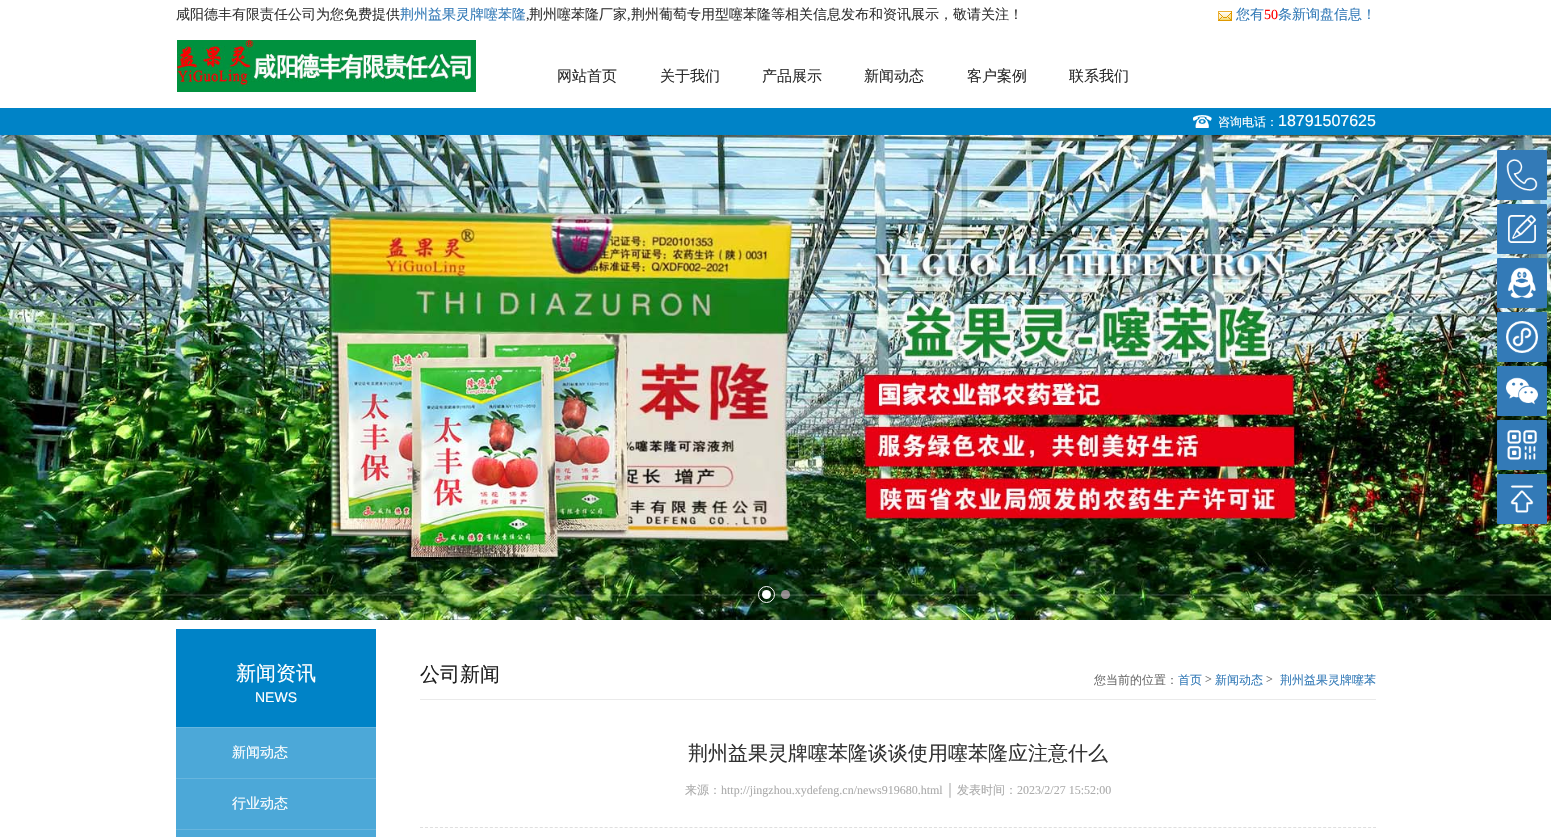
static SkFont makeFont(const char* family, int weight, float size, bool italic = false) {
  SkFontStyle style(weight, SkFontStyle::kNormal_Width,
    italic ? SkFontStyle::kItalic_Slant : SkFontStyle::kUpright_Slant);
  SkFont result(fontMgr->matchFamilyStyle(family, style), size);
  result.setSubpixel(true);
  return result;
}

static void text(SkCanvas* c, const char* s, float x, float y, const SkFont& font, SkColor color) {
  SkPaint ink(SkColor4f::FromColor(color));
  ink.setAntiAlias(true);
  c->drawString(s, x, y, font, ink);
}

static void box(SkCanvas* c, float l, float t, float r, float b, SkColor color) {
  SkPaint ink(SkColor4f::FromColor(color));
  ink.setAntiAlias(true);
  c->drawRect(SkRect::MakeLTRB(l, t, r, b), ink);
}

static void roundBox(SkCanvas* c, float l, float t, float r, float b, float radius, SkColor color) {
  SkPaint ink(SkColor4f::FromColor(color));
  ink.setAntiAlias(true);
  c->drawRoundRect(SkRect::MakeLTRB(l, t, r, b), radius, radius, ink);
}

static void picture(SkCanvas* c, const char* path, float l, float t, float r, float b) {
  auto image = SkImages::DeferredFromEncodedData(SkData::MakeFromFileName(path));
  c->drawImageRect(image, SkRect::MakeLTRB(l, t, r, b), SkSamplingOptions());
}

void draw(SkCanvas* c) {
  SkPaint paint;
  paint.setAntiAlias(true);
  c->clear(0xffffffff);
  SkFont face1 = makeFont("WenQuanYi Zen Hei", 500, 14);
  text(c, "咸阳德丰有限责任公司为您免费提供", 176, 19, face1, 0xff333333);
  text(c, "荆州益果灵牌噻苯隆", 400, 19, face1, 0xff337ab7);
  SkFont face2 = makeFont("Liberation Serif", 400, 14);
  text(c, ",", 526, 19, face2, 0xff333333);
  text(c, "荆州噻苯隆厂家", 529, 19, face1, 0xff333333);
  text(c, ",", 627, 19, face2, 0xff333333);
  text(c, "荆州葡萄专用型噻苯隆等相关信息发布和资讯展示，敬请关注！", 631, 19, face1, 0xff333333);
  picture(c, "img_01.png", 1218, 11, 1232, 21);
  text(c, "您有", 1236, 19, face1, 0xff337ab7);
  text(c, "50", 1264, 19, face2, 0xffff0000);
  text(c, "条新询盘信息！", 1278, 19, face1, 0xff337ab7);
  picture(c, "img_02.png", 177, 40, 476, 92);
  SkFont face3 = makeFont("WenQuanYi Zen Hei", 500, 15);
  text(c, "网站首页", 557, 81, face3, 0xff2c2c2c);
  text(c, "关于我们", 660, 81, face3, 0xff2c2c2c);
  text(c, "产品展示", 762, 81, face3, 0xff2c2c2c);
  text(c, "新闻动态", 864, 81, face3, 0xff2c2c2c);
  text(c, "客户案例", 967, 81, face3, 0xff2c2c2c);
  text(c, "联系我们", 1069, 81, face3, 0xff2c2c2c);
  box(c, 0, 108, 1551, 135, 0xff0083c7);
  picture(c, "img_03.png", 1193, 115, 1212, 128);
  SkFont face4 = makeFont("WenQuanYi Zen Hei", 500, 12);
  text(c, "咨询电话：", 1218, 126, face4, 0xffffffff);
  SkFont face5 = makeFont("Liberation Sans", 400, 16);
  text(c, "18791507625", 1278, 126, face5, 0xffffffff);
  picture(c, "img_04.png", 0, 135, 1551, 620);
  paint.setColor(0xffffffff);
  c->drawCircle(766.5f, 594.5f, 4.5f, paint);
  paint.setStyle(SkPaint::kStroke_Style);
  paint.setStrokeWidth(1);
  c->drawCircle(766.5f, 594.5f, 8, paint);
  paint.setStyle(SkPaint::kFill_Style);
  paint.setColor(0xff8f898b);
  c->drawCircle(785.5f, 594.5f, 4.5f, paint);
  box(c, 0, 594, 1551, 596, 0x1affffff);
  box(c, 176, 629, 376, 727, 0xff0083c7);
  SkFont face6 = makeFont("WenQuanYi Zen Hei", 500, 20);
  text(c, "新闻资讯", 236, 680, face6, 0xffffffff);
  SkFont face7 = makeFont("Liberation Sans", 400, 14);
  text(c, "NEWS", 255, 702, face7, 0xffffffff);
  box(c, 176, 728, 376, 837, 0xff4ca8d8);
  box(c, 176, 727, 376, 728, 0xff67b5de);
  text(c, "新闻动态", 232, 757, face1, 0xffffffff);
  box(c, 176, 778, 376, 779, 0xff67b5de);
  text(c, "行业动态", 232, 808, face1, 0xffffffff);
  box(c, 176, 829, 376, 830, 0xff67b5de);
  box(c, 420, 699, 1376, 700, 0xffeaeaea);
  text(c, "公司新闻", 420, 681, face6, 0xff1f1f1f);
  text(c, "您当前的位置：", 1094, 684, face4, 0xff6e6e6e);
  text(c, "首页", 1178, 684, face4, 0xff337ab7);
  SkFont face8 = makeFont("Liberation Serif", 400, 12);
  text(c, ">", 1205, 683, face8, 0xff6e6e6e);
  text(c, "新闻动态", 1215, 684, face4, 0xff337ab7);
  text(c, ">", 1266, 683, face8, 0xff6e6e6e);
  text(c, "荆州益果灵牌噻苯", 1280, 684, face4, 0xff337ab7);
  paint.setStyle(SkPaint::kStroke_Style);
  paint.setColor(0xffdfdfdf);
  paint.setPathEffect(SkDashPathEffect::Make({{3, 1.99f}}, 0));
  c->drawPath(SkPathBuilder().moveTo(420, 827.5f).lineTo(1376, 827.5f).detach(), paint);
  paint.setPathEffect(nullptr);
  text(c, "荆州益果灵牌噻苯隆谈谈使用噻苯隆应注意什么", 688, 760, face6, 0xff333333);
  text(c, "来源：", 685, 794, face4, 0xffababab);
  text(c, "http://jingzhou.xydefeng.cn/news919680.html │", 721, 794, face8, 0xffababab);
  text(c, "发表时间：", 957, 794, face4, 0xffababab);
  text(c, "2023/2/27 15:52:00", 1017, 794, face8, 0xffababab);
  roundBox(c, 1497, 150, 1547, 200, 1, 0xff337ab7);
  picture(c, "img_05.png", 1506, 159, 1538, 191);
  roundBox(c, 1497, 204, 1547, 254, 1, 0xff337ab7);
  picture(c, "img_06.png", 1508, 215, 1536, 243);
  roundBox(c, 1497, 258, 1547, 308, 1, 0xff337ab7);
  picture(c, "img_07.png", 1508, 267, 1536, 299);
  roundBox(c, 1497, 312, 1547, 362, 1, 0xff337ab7);
  picture(c, "img_08.png", 1506, 321, 1538, 353);
  roundBox(c, 1497, 366, 1547, 416, 1, 0xff337ab7);
  picture(c, "img_09.png", 1506, 377, 1538, 405);
  roundBox(c, 1497, 420, 1547, 470, 1, 0xff337ab7);
  picture(c, "img_10.png", 1507, 430, 1537, 460);
  roundBox(c, 1497, 474, 1547, 524, 1, 0xff337ab7);
  picture(c, "img_11.png", 1510, 485, 1534, 513);
}
